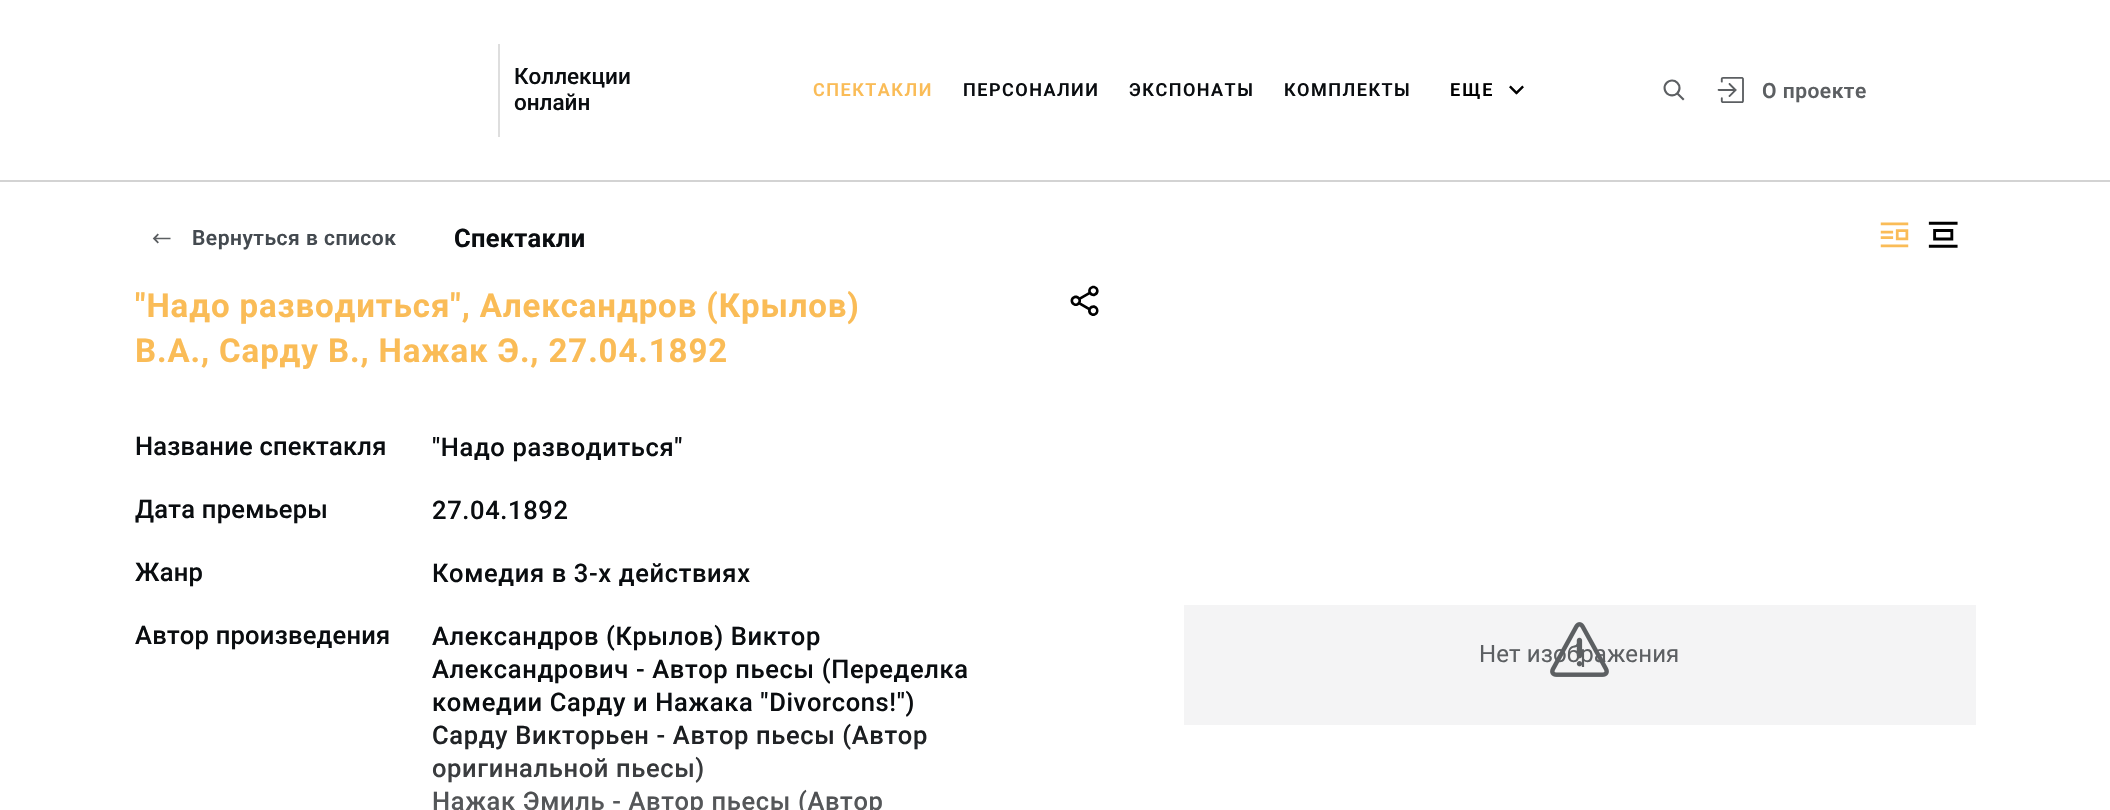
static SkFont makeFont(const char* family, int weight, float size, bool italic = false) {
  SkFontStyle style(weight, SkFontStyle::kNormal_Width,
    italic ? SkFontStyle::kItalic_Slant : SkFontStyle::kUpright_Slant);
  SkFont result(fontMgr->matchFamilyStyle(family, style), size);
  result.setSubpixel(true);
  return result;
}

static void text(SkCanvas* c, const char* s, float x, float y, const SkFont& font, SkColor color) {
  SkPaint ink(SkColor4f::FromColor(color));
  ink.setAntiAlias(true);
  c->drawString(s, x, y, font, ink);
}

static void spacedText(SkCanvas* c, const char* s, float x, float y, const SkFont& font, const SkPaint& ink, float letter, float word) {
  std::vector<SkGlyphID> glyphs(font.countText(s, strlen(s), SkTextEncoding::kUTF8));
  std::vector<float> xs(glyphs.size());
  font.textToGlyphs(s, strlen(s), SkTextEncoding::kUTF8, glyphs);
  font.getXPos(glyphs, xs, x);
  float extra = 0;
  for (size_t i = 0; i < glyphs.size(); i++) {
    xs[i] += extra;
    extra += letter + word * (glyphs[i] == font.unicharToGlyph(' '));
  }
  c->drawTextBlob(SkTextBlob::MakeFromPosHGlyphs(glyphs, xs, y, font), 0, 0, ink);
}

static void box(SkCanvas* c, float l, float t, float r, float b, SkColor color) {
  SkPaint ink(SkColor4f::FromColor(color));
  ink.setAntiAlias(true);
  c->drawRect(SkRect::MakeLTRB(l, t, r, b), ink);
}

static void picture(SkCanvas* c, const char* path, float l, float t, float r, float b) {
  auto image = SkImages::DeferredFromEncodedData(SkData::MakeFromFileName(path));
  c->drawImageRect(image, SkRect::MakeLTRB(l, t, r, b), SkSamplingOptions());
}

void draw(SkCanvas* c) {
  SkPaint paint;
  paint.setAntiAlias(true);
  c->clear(0xffffffff);
  box(c, 0, 180, 2110, 182, 0xffd3d3d3);
  box(c, 498, 44, 500, 137, 0xffdedede);
  SkFont face1 = makeFont("Roboto", 500, 22.5f);
  text(c, "Коллекции", 514, 84, face1, 0xff0a0d10);
  text(c, "онлайн", 514, 110, face1, 0xff0a0d10);
  SkFont face2 = makeFont("Roboto", 600, 18);
  paint.setColor(0xfffabc57);
  spacedText(c, "СПЕКТАКЛИ", 813, 96, face2, paint, 1.5f, 0);
  paint.setColor(0xff0a0d10);
  spacedText(c, "ПЕРСОНАЛИИ", 963, 96, face2, paint, 1.5f, 0);
  spacedText(c, "ЭКСПОНАТЫ", 1129, 96, face2, paint, 1.5f, 0);
  spacedText(c, "КОМПЛЕКТЫ", 1284, 96, face2, paint, 1.5f, 0);
  paint.setColor(0xff000000);
  spacedText(c, "ЕЩЕ", 1450, 96, face2, paint, 2, 0);
  picture(c, "img_01.png", 1509, 85, 1524, 95);
  picture(c, "img_02.png", 1663, 79, 1685, 101);
  picture(c, "img_03.png", 1717, 77, 1744, 103);
  SkFont face3 = makeFont("Roboto", 600, 21);
  paint.setColor(0xff5c5f62);
  spacedText(c, "О проекте", 1762, 98, face3, paint, 0.5f, 0);
  picture(c, "img_04.png", 152, 233, 171, 244);
  paint.setColor(0xff444a50);
  spacedText(c, "Вернуться в список", 192, 245, face3, paint, 0.5f, 0);
  SkFont face4 = makeFont("Roboto", 700, 25.5f);
  paint.setColor(0xff0a0d10);
  spacedText(c, "Спектакли", 454, 247, face4, paint, 0.25f, 0);
  picture(c, "img_05.png", 1880, 222, 1909, 248);
  picture(c, "img_06.png", 1928, 221, 1958, 248);
  SkFont face5 = makeFont("Roboto", 700, 33);
  paint.setColor(0xfffabc57);
  spacedText(c, "\"Надо разводиться\", Александров (Крылов)", 135, 317, face5, paint, 0.9f, 0);
  spacedText(c, "В.А., Сарду В., Нажак Э., 27.04.1892", 135, 362, face5, paint, 0.9f, 0);
  picture(c, "img_07.png", 1070, 285, 1099, 316);
  SkFont face6 = makeFont("Roboto", 500, 25.5f);
  paint.setColor(0xff0a0d10);
  spacedText(c, "Название спектакля", 135, 455, face6, paint, 0.25f, 0);
  spacedText(c, "\"Надо разводиться\"", 432, 456, face6, paint, 0.65f, 0);
  spacedText(c, "Дата премьеры", 135, 518, face6, paint, 0.25f, 0);
  spacedText(c, "27.04.1892", 432, 519, face6, paint, 0.65f, 0);
  spacedText(c, "Жанр", 135, 581, face6, paint, 0.25f, 0);
  spacedText(c, "Комедия в 3-х действиях", 432, 582, face6, paint, 0.65f, 0);
  spacedText(c, "Автор произведения", 135, 644, face6, paint, 0.25f, 0);
  spacedText(c, "Александров (Крылов) Виктор", 432, 645, face6, paint, 0.65f, 0);
  spacedText(c, "Александрович - Автор пьесы (Переделка", 432, 678, face6, paint, 0.65f, 0);
  spacedText(c, "комедии Сарду и Нажака \"Divorcons!\")", 432, 711, face6, paint, 0.65f, 0);
  spacedText(c, "Сарду Викторьен - Автор пьесы (Автор", 432, 744, face6, paint, 0.65f, 0);
  spacedText(c, "оригинальной пьесы)", 432, 777, face6, paint, 0.65f, 0);
  spacedText(c, "Нажак Эмиль - Автор пьесы (Автор", 432, 810, face6, paint, 0.65f, 0);
  {
    const SkColor colors[] = {0x03ffffff, 0xffffffff};
    const float stops[] = {0, 0.8f};
    const SkPoint ends[] = {{577, 718}, {577, 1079}};
    paint.setShader(SkGradientShader::MakeLinear(ends, colors, stops, 2, SkTileMode::kClamp));
    paint.setAlpha(255);
  }
  c->drawRect(SkRect::MakeLTRB(433, 724, 926, 810), paint);
  box(c, 1184, 605, 1976, 725, 0xfff4f4f5);
  SkFont face7 = makeFont("Roboto", 400, 24);
  paint.setShader(nullptr);
  paint.setColor(0xff5c5f62);
  spacedText(c, "Нет изображения", 1479, 662, face7, paint, 0.1f, 0);
  picture(c, "img_08.png", 1550, 622, 1609, 677);
}
